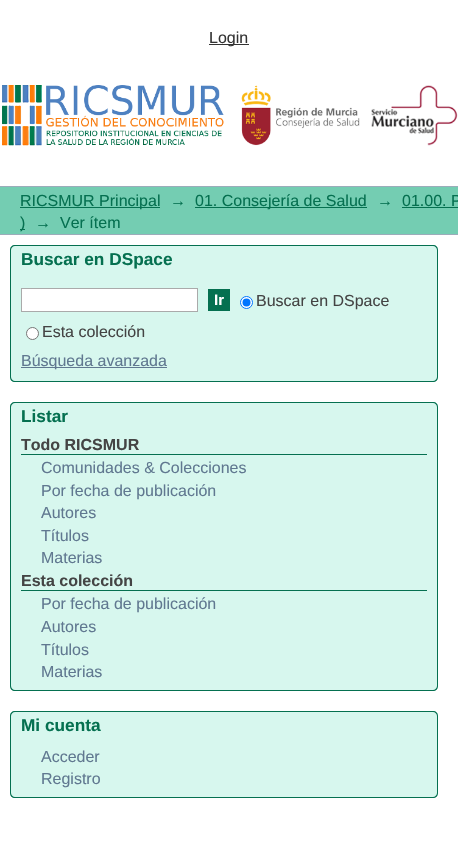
static SkFont makeFont(const char* family, int weight, float size, bool italic = false) {
  SkFontStyle style(weight, SkFontStyle::kNormal_Width,
    italic ? SkFontStyle::kItalic_Slant : SkFontStyle::kUpright_Slant);
  SkFont result(fontMgr->matchFamilyStyle(family, style), size);
  result.setSubpixel(true);
  return result;
}

static void text(SkCanvas* c, const char* s, float x, float y, const SkFont& font, SkColor color) {
  SkPaint ink(SkColor4f::FromColor(color));
  ink.setAntiAlias(true);
  c->drawString(s, x, y, font, ink);
}

static void box(SkCanvas* c, float l, float t, float r, float b, SkColor color) {
  SkPaint ink(SkColor4f::FromColor(color));
  ink.setAntiAlias(true);
  c->drawRect(SkRect::MakeLTRB(l, t, r, b), ink);
}

static void picture(SkCanvas* c, const char* path, float l, float t, float r, float b) {
  auto image = SkImages::DeferredFromEncodedData(SkData::MakeFromFileName(path));
  c->drawImageRect(image, SkRect::MakeLTRB(l, t, r, b), SkSamplingOptions());
}

void draw(SkCanvas* c) {
  SkPaint paint;
  paint.setAntiAlias(true);
  c->clear(0xffffffff);
  box(c, 209, 44, 249, 45, 0xff333333);
  SkFont face1 = makeFont("Liberation Sans", 400, 16);
  text(c, "Login", 209, 43, face1, 0xff333333);
  picture(c, "img_01.png", 2, 85, 458, 146);
  box(c, 0, 187, 458, 234, 0xff74cdb2);
  box(c, 0, 186, 458, 187, 0xff9cacba);
  box(c, 0, 234, 458, 235, 0xff9cacba);
  box(c, 20, 207, 160, 208, 0xff057050);
  text(c, "RICSMUR Principal", 20, 206, face1, 0xff057050);
  text(c, "→", 170, 206, face1, 0xff057050);
  box(c, 195, 207, 367, 208, 0xff057050);
  text(c, "01. Consejería de Salud", 195, 206, face1, 0xff057050);
  text(c, "→", 377, 206, face1, 0xff057050);
  text(c, "01.00. P", 402, 206, face1, 0xff057050);
  box(c, 402, 207, 458, 208, 0xff057050);
  box(c, 20, 229, 25, 230, 0xff057050);
  text(c, ")", 20, 228, face1, 0xff057050);
  text(c, "→", 35, 228, face1, 0xff057050);
  text(c, "Ver ítem", 60, 228, face1, 0xff057050);
  paint.setColor(0xffd7f7ee);
  c->drawPath(SkPathBuilder().moveTo(15, 245).lineTo(433, 245).cubicTo(436, 245, 438, 247, 438, 250).lineTo(438, 273).lineTo(10, 273).lineTo(10, 250).cubicTo(10, 247, 12, 245, 15, 245).close().detach(), paint);
  paint.setColor(0xff057050);
  c->drawPath(SkPathBuilder(SkPathFillType::kEvenOdd).moveTo(15, 245).lineTo(433, 245).cubicTo(436, 245, 438, 247, 438, 250).lineTo(438, 273).lineTo(10, 273).lineTo(10, 250).cubicTo(10, 247, 12, 245, 15, 245).close().moveTo(15, 246).lineTo(433, 246).cubicTo(435, 246, 437, 248, 437, 250).lineTo(437, 273).lineTo(11, 273).lineTo(11, 250).cubicTo(11, 248, 13, 246, 15, 246).close().detach(), paint);
  SkFont face2 = makeFont("Liberation Sans", 700, 17.25f);
  text(c, "Buscar en DSpace", 21, 265, face2, 0xff057050);
  paint.setColor(0xffd7f7ee);
  c->drawPath(SkPathBuilder().moveTo(10, 273).lineTo(438, 273).lineTo(438, 377).cubicTo(438, 380, 436, 382, 433, 382).lineTo(15, 382).cubicTo(12, 382, 10, 380, 10, 377).close().detach(), paint);
  paint.setColor(0xff057050);
  c->drawPath(SkPathBuilder(SkPathFillType::kEvenOdd).moveTo(10, 273).lineTo(438, 273).lineTo(438, 377).cubicTo(438, 380, 436, 382, 433, 382).lineTo(15, 382).cubicTo(12, 382, 10, 380, 10, 377).close().moveTo(11, 273).lineTo(437, 273).lineTo(437, 377).cubicTo(437, 379, 435, 381, 433, 381).lineTo(15, 381).cubicTo(13, 381, 11, 379, 11, 377).close().detach(), paint);
  paint.setColor(0xffffffff);
  c->drawRect(SkRect::MakeLTRB(21.5f, 288.5f, 197.5f, 311.5f), paint);
  paint.setStyle(SkPaint::kStroke_Style);
  paint.setStrokeWidth(1);
  paint.setColor(0xffaaaaaa);
  c->drawRect(SkRect::MakeLTRB(21.5f, 288.5f, 197.5f, 311.5f), paint);
  box(c, 208, 289, 230, 311, 0xff057050);
  SkFont face3 = makeFont("Liberation Sans", 700, 15);
  text(c, "Ir", 214, 305, face3, 0xffffffff);
  paint.setStyle(SkPaint::kFill_Style);
  paint.setColor(0xffffffff);
  c->drawCircle(246.5f, 302.5f, 6, paint);
  paint.setStyle(SkPaint::kStroke_Style);
  paint.setColor(0xff0075ff);
  c->drawCircle(246.5f, 302.5f, 6, paint);
  paint.setStyle(SkPaint::kFill_Style);
  c->drawCircle(246.5f, 302.5f, 4, paint);
  text(c, "Buscar en DSpace", 256, 306, face1, 0xff444444);
  paint.setColor(0xffffffff);
  c->drawCircle(32.5f, 333.5f, 6, paint);
  paint.setStyle(SkPaint::kStroke_Style);
  paint.setColor(0xff767676);
  c->drawCircle(32.5f, 333.5f, 6, paint);
  text(c, "Esta colección", 42, 337, face1, 0xff444444);
  box(c, 21, 367, 167, 368, 0xff607890);
  text(c, "Búsqueda avanzada", 21, 366, face1, 0xff607890);
  paint.setStyle(SkPaint::kFill_Style);
  paint.setColor(0xffd7f7ee);
  c->drawPath(SkPathBuilder().moveTo(15, 402).lineTo(433, 402).cubicTo(436, 402, 438, 404, 438, 407).lineTo(438, 430).lineTo(10, 430).lineTo(10, 407).cubicTo(10, 404, 12, 402, 15, 402).close().detach(), paint);
  paint.setColor(0xff057050);
  c->drawPath(SkPathBuilder(SkPathFillType::kEvenOdd).moveTo(15, 402).lineTo(433, 402).cubicTo(436, 402, 438, 404, 438, 407).lineTo(438, 430).lineTo(10, 430).lineTo(10, 407).cubicTo(10, 404, 12, 402, 15, 402).close().moveTo(15, 403).lineTo(433, 403).cubicTo(435, 403, 437, 405, 437, 407).lineTo(437, 430).lineTo(11, 430).lineTo(11, 407).cubicTo(11, 405, 13, 403, 15, 403).close().detach(), paint);
  text(c, "Listar", 21, 422, face2, 0xff057050);
  paint.setColor(0xffd7f7ee);
  c->drawPath(SkPathBuilder().moveTo(10, 430).lineTo(438, 430).lineTo(438, 686).cubicTo(438, 689, 436, 691, 433, 691).lineTo(15, 691).cubicTo(12, 691, 10, 689, 10, 686).close().detach(), paint);
  paint.setColor(0xff057050);
  c->drawPath(SkPathBuilder(SkPathFillType::kEvenOdd).moveTo(10, 430).lineTo(438, 430).lineTo(438, 686).cubicTo(438, 689, 436, 691, 433, 691).lineTo(15, 691).cubicTo(12, 691, 10, 689, 10, 686).close().moveTo(11, 430).lineTo(437, 430).lineTo(437, 686).cubicTo(437, 688, 435, 690, 433, 690).lineTo(15, 690).cubicTo(13, 690, 11, 688, 11, 686).close().detach(), paint);
  box(c, 21, 454, 427, 455, 0xff057050);
  SkFont face4 = makeFont("Liberation Sans", 700, 16);
  text(c, "Todo RICSMUR", 21, 450, face4, 0xff444444);
  text(c, "Comunidades & Colecciones", 41, 473, face1, 0xff607890);
  text(c, "Por fecha de publicación", 41, 496, face1, 0xff607890);
  text(c, "Autores", 41, 518, face1, 0xff607890);
  text(c, "Títulos", 41, 541, face1, 0xff607890);
  text(c, "Materias", 41, 563, face1, 0xff607890);
  box(c, 21, 590, 427, 591, 0xff057050);
  text(c, "Esta colección", 21, 586, face4, 0xff444444);
  text(c, "Por fecha de publicación", 41, 609, face1, 0xff607890);
  text(c, "Autores", 41, 632, face1, 0xff607890);
  text(c, "Títulos", 41, 655, face1, 0xff607890);
  text(c, "Materias", 41, 677, face1, 0xff607890);
  paint.setColor(0xffd7f7ee);
  c->drawPath(SkPathBuilder().moveTo(15, 711).lineTo(433, 711).cubicTo(436, 711, 438, 713, 438, 716).lineTo(438, 739).lineTo(10, 739).lineTo(10, 716).cubicTo(10, 713, 12, 711, 15, 711).close().detach(), paint);
  paint.setColor(0xff057050);
  c->drawPath(SkPathBuilder(SkPathFillType::kEvenOdd).moveTo(15, 711).lineTo(433, 711).cubicTo(436, 711, 438, 713, 438, 716).lineTo(438, 739).lineTo(10, 739).lineTo(10, 716).cubicTo(10, 713, 12, 711, 15, 711).close().moveTo(15, 712).lineTo(433, 712).cubicTo(435, 712, 437, 714, 437, 716).lineTo(437, 739).lineTo(11, 739).lineTo(11, 716).cubicTo(11, 714, 13, 712, 15, 712).close().detach(), paint);
  text(c, "Mi cuenta", 21, 731, face2, 0xff057050);
  paint.setColor(0xffd7f7ee);
  c->drawPath(SkPathBuilder().moveTo(10, 739).lineTo(438, 739).lineTo(438, 793).cubicTo(438, 796, 436, 798, 433, 798).lineTo(15, 798).cubicTo(12, 798, 10, 796, 10, 793).close().detach(), paint);
  paint.setColor(0xff057050);
  c->drawPath(SkPathBuilder(SkPathFillType::kEvenOdd).moveTo(10, 739).lineTo(438, 739).lineTo(438, 793).cubicTo(438, 796, 436, 798, 433, 798).lineTo(15, 798).cubicTo(12, 798, 10, 796, 10, 793).close().moveTo(11, 739).lineTo(437, 739).lineTo(437, 793).cubicTo(437, 795, 435, 797, 433, 797).lineTo(15, 797).cubicTo(13, 797, 11, 795, 11, 793).close().detach(), paint);
  text(c, "Acceder", 41, 762, face1, 0xff607890);
  text(c, "Registro", 41, 784, face1, 0xff607890);
}
